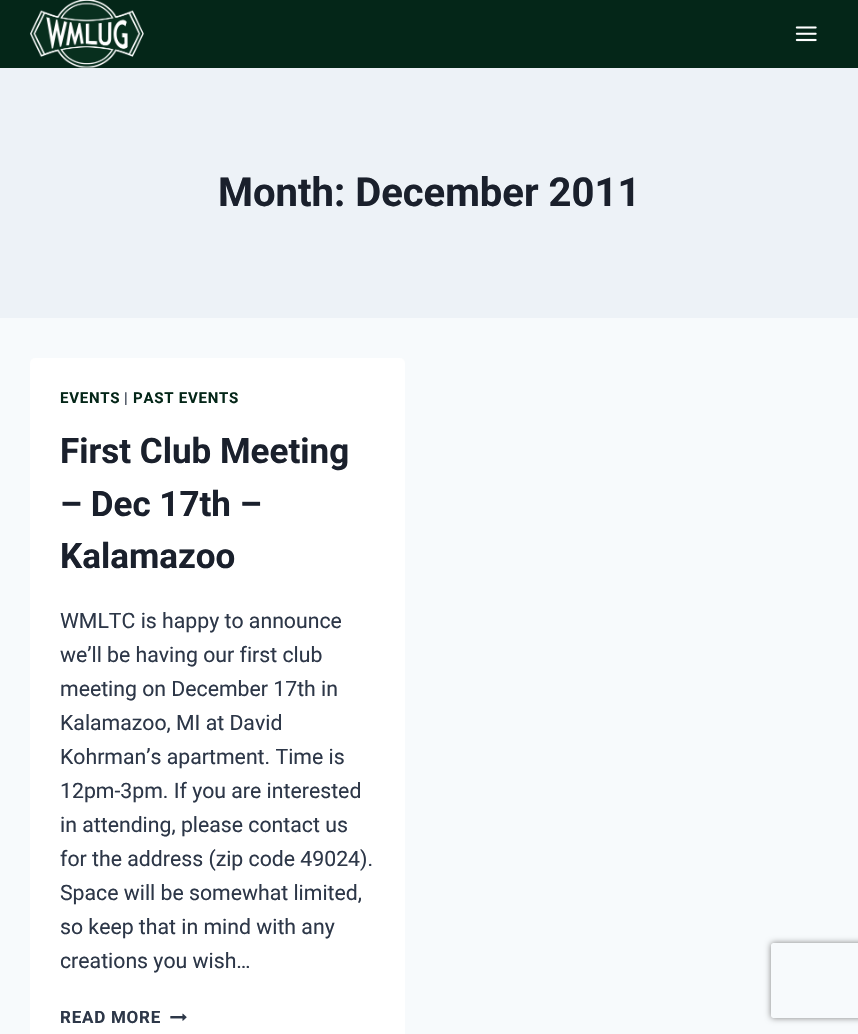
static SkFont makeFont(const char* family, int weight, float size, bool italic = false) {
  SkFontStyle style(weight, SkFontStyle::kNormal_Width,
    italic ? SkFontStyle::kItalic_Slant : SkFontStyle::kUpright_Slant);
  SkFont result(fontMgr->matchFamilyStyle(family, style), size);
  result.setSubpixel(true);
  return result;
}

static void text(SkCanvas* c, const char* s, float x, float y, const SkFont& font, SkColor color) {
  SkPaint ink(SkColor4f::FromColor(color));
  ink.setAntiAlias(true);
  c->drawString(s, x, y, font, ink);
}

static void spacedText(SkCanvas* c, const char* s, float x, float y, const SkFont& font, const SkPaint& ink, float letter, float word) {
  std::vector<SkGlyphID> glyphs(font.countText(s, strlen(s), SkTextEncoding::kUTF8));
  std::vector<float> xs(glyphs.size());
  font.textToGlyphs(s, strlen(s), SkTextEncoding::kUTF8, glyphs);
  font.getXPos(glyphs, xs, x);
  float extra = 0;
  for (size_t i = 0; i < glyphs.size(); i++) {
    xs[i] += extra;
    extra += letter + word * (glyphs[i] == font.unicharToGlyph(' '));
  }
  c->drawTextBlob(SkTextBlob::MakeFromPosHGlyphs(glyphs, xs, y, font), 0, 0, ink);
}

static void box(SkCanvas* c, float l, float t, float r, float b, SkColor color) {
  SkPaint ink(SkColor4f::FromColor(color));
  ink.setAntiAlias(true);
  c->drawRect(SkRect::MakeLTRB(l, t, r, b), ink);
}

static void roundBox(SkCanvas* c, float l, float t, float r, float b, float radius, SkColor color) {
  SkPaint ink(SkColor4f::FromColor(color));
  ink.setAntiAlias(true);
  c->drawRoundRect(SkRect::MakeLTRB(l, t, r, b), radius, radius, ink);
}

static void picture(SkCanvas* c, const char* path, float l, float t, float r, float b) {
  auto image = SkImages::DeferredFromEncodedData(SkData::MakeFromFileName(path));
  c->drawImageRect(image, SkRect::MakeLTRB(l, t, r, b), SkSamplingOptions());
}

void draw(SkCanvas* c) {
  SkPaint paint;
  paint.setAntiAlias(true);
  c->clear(0xfff7fafc);
  box(c, 0, 0, 858, 68, 0xff042618);
  picture(c, "img_01.png", 30, 0, 144, 68);
  picture(c, "img_02.png", 795, 26, 817, 42);
  box(c, 0, 68, 858, 318, 0xffedf2f7);
  SkFont face1 = makeFont("Roboto", 700, 40);
  text(c, "Month: December 2011", 218, 206, face1, 0xff1a202c);
  roundBox(c, 30, 358, 405, 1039, 5, 0xffffffff);
  SkFont face2 = makeFont("Roboto", 700, 15);
  paint.setColor(0xff042618);
  spacedText(c, "EVENTS", 60, 403, face2, paint, 0.75f, 0);
  SkFont face3 = makeFont("Roboto", 400, 15);
  paint.setColor(0xff2d3748);
  spacedText(c, "|", 124, 403, face3, paint, 0.75f, 0);
  paint.setColor(0xff042618);
  spacedText(c, "PAST EVENTS", 133, 403, face2, paint, 0.75f, 0);
  SkFont face4 = makeFont("Roboto", 700, 35);
  text(c, "First Club Meeting", 60, 463, face4, 0xff1a202c);
  text(c, "– Dec 17th –", 60, 516, face4, 0xff1a202c);
  text(c, "Kalamazoo", 60, 568, face4, 0xff1a202c);
  SkFont face5 = makeFont("Roboto", 400, 21.25f);
  text(c, "WMLTC is happy to announce", 60, 628, face5, 0xff2d3748);
  text(c, "we’ll be having our first club", 60, 662, face5, 0xff2d3748);
  text(c, "meeting on December 17th in", 60, 696, face5, 0xff2d3748);
  text(c, "Kalamazoo, MI at David", 60, 730, face5, 0xff2d3748);
  text(c, "Kohrman’s apartment. Time is", 60, 764, face5, 0xff2d3748);
  text(c, "12pm-3pm. If you are interested", 60, 798, face5, 0xff2d3748);
  text(c, "in attending, please contact us", 60, 832, face5, 0xff2d3748);
  text(c, "for the address (zip code 49024).", 60, 866, face5, 0xff2d3748);
  text(c, "Space will be somewhat limited,", 60, 900, face5, 0xff2d3748);
  text(c, "so keep that in mind with any", 60, 934, face5, 0xff2d3748);
  text(c, "creations you wish…", 60, 968, face5, 0xff2d3748);
  SkFont face6 = makeFont("Roboto", 700, 17);
  paint.setColor(0xff2d3748);
  spacedText(c, "READ MORE", 60, 1023, face6, paint, 0.75f, 0);
  picture(c, "img_03.png", 170, 1013, 187, 1021);
  c->save();
  c->clipPath(SkPathBuilder(SkPathFillType::kEvenOdd).moveTo(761, 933).lineTo(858, 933).lineTo(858, 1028).lineTo(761, 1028).close().moveTo(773.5f, 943).lineTo(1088.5f, 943).cubicTo(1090, 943, 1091, 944, 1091, 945.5f).lineTo(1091, 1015.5f).cubicTo(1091, 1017, 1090, 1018, 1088.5f, 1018).lineTo(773.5f, 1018).cubicTo(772, 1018, 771, 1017, 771, 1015.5f).lineTo(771, 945.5f).cubicTo(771, 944, 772, 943, 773.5f, 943).close().detach(), true);
  paint.setColor(0xff808080);
  paint.setMaskFilter(SkMaskFilter::MakeBlur(kNormal_SkBlurStyle, 3));
  c->drawRoundRect(SkRect::MakeLTRB(771, 943, 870, 1018), 2.5f, 2.5f, paint);
  paint.setMaskFilter(nullptr);
  c->restore();
}
